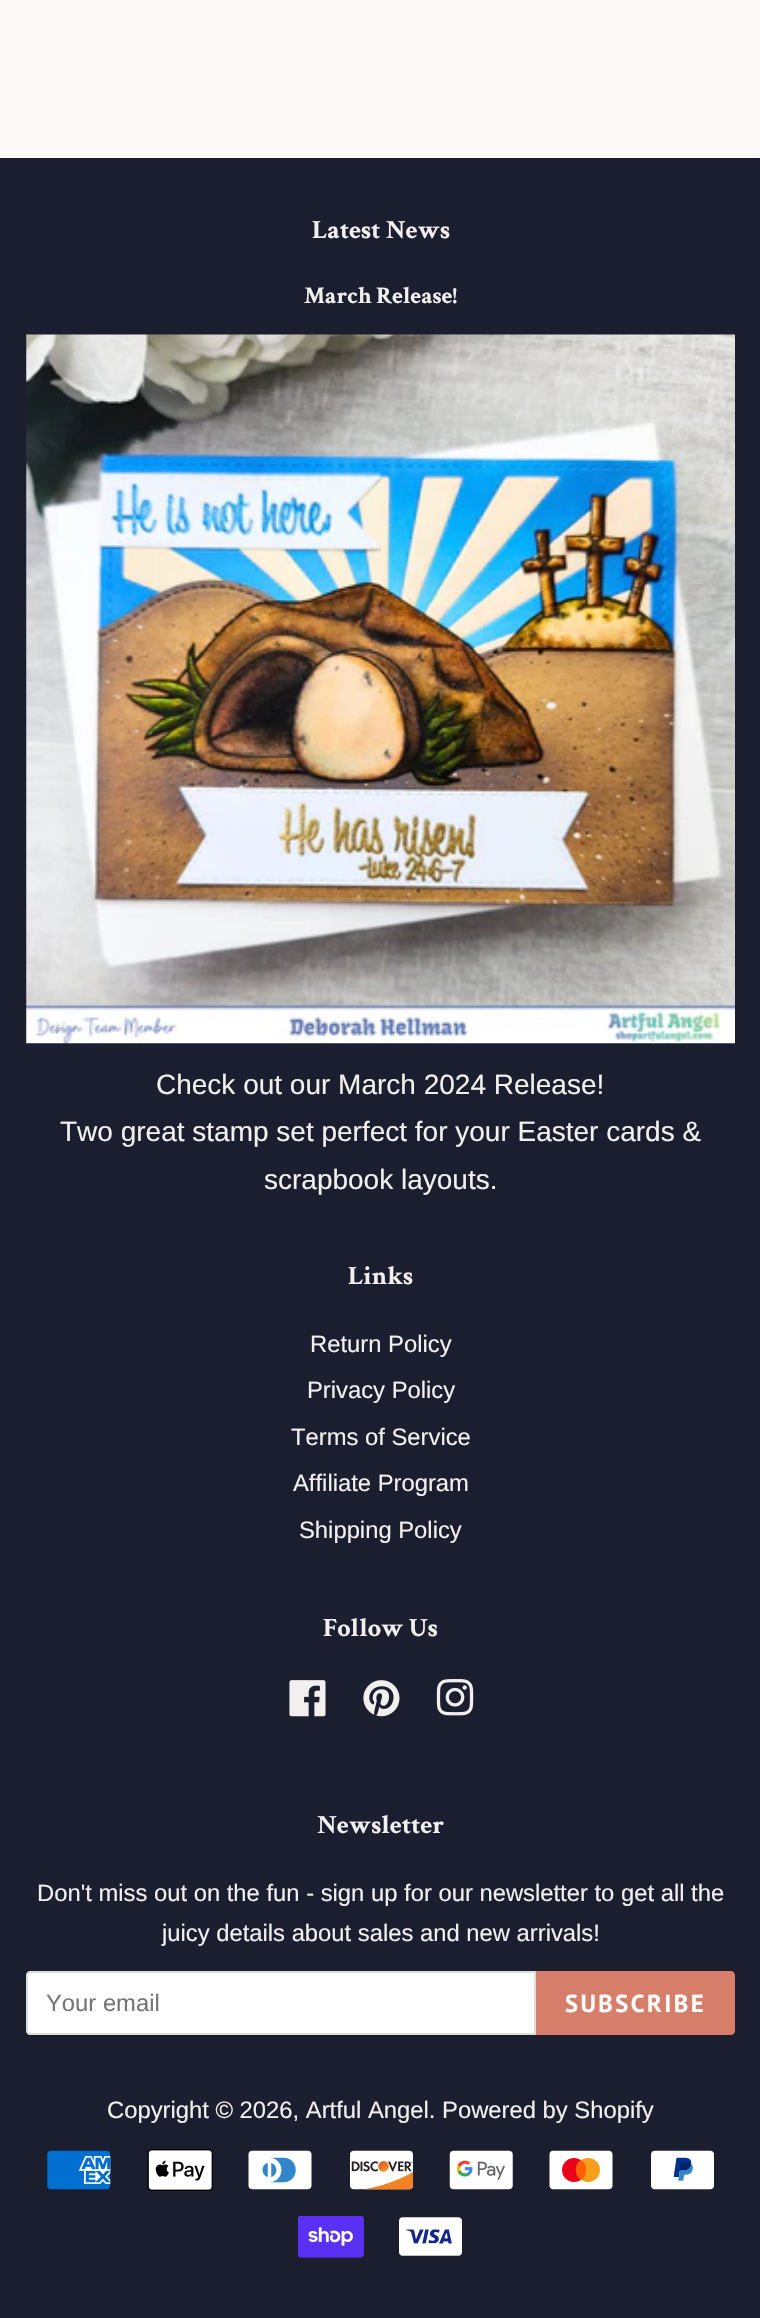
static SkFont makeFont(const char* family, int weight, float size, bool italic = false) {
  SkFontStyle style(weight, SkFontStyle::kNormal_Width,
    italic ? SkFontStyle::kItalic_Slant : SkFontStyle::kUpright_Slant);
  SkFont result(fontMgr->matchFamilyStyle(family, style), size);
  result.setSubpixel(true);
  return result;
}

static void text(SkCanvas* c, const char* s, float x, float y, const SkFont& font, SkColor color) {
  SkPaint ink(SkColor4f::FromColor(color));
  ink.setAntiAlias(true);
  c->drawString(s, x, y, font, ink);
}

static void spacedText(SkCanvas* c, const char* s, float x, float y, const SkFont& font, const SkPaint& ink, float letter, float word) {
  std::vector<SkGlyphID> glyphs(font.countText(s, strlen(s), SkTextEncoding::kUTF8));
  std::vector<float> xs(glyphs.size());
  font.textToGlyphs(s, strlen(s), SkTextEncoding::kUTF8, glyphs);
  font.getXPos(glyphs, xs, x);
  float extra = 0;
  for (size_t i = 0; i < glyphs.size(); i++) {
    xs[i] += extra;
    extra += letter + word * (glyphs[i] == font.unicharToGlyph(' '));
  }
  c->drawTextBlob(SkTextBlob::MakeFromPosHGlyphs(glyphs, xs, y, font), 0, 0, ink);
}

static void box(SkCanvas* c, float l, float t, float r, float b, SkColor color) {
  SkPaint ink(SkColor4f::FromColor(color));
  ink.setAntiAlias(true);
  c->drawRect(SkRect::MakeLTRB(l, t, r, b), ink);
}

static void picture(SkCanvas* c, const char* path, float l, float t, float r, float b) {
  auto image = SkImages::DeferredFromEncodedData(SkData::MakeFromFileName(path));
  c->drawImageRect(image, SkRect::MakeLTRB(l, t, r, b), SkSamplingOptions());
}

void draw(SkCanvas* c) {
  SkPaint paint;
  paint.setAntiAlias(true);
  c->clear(0xfffaf9f7);
  box(c, 0, 158, 760, 2318, 0xff1b1e2f);
  SkFont face1 = makeFont("Crimson Text", 700, 26.25f);
  text(c, "Latest News", 312, 238, face1, 0xfff2f0ee);
  SkFont face2 = makeFont("Crimson Text", 700, 23.8f);
  text(c, "March Release!", 304, 303, face2, 0xfff2f0ee);
  picture(c, "img_01.png", 26, 334, 735, 1044);
  SkFont face3 = makeFont("Liberation Sans", 400, 28);
  text(c, "Check out our March 2024 Release!", 156, 1094, face3, 0xfff2f0ee);
  text(c, "Two great stamp set perfect for your Easter cards &", 60, 1141, face3, 0xfff2f0ee);
  text(c, "scrapbook layouts.", 264, 1189, face3, 0xfff2f0ee);
  text(c, "Links", 348, 1284, face1, 0xfff2f0ee);
  SkFont face4 = makeFont("Liberation Sans", 400, 23.8f);
  text(c, "Return Policy", 310, 1352, face4, 0xfff2f0ee);
  text(c, "Privacy Policy", 307, 1398, face4, 0xfff2f0ee);
  text(c, "Terms of Service", 291, 1445, face4, 0xfff2f0ee);
  text(c, "Affiliate Program", 293, 1491, face4, 0xfff2f0ee);
  text(c, "Shipping Policy", 299, 1538, face4, 0xfff2f0ee);
  text(c, "Follow Us", 323, 1636, face1, 0xfff2f0ee);
  picture(c, "img_02.png", 289, 1680, 326, 1717);
  picture(c, "img_03.png", 363, 1680, 400, 1717);
  picture(c, "img_04.png", 436, 1679, 474, 1716);
  text(c, "Newsletter", 317, 1833, face1, 0xfff2f0ee);
  text(c, "Don't miss out on the fun - sign up for our newsletter to get all the", 37, 1901, face4, 0xfff2f0ee);
  text(c, "juicy details about sales and new arrivals!", 162, 1941, face4, 0xfff2f0ee);
  paint.setColor(0xffffffff);
  c->drawPath(SkPathBuilder().moveTo(30, 1971).lineTo(536, 1971).lineTo(536, 2035).lineTo(30, 2035).cubicTo(28, 2035, 26, 2033, 26, 2031).lineTo(26, 1975).cubicTo(26, 1973, 28, 1971, 30, 1971).close().detach(), paint);
  paint.setStyle(SkPaint::kStroke_Style);
  paint.setStrokeWidth(2);
  paint.setColor(0x261b1e2f);
  c->drawPath(SkPathBuilder().moveTo(30, 1972).lineTo(535, 1972).lineTo(535, 2034).lineTo(30, 2034).cubicTo(28.5f, 2034, 27, 2032.5f, 27, 2031).lineTo(27, 1975).cubicTo(27, 1973.5f, 28.5f, 1972, 30, 1972).close().detach(), paint);
  text(c, "Your email", 46, 2011, face4, 0xff757575);
  paint.setStyle(SkPaint::kFill_Style);
  paint.setColor(0xffd77e6a);
  c->drawPath(SkPathBuilder().moveTo(536, 1971).lineTo(731, 1971).cubicTo(733, 1971, 735, 1973, 735, 1975).lineTo(735, 2031).cubicTo(735, 2033, 733, 2035, 731, 2035).lineTo(536, 2035).close().detach(), paint);
  SkFont face5 = makeFont("PT Sans", 700, 24.5f);
  paint.setColor(0xffffffff);
  spacedText(c, "SUBSCRIBE", 565, 2012, face5, paint, 2.5f, 0);
  text(c, "Copyright © 2026, Artful Angel. Powered by Shopify", 107, 2118, face4, 0xfff2f0ee);
  picture(c, "img_05.png", 47, 2150, 111, 2190);
  picture(c, "img_06.png", 147, 2149, 213, 2191);
  picture(c, "img_07.png", 248, 2150, 312, 2190);
  picture(c, "img_08.png", 350, 2150, 414, 2190);
  picture(c, "img_09.png", 449, 2150, 513, 2190);
  picture(c, "img_10.png", 549, 2150, 613, 2190);
  picture(c, "img_11.png", 651, 2150, 714, 2190);
  picture(c, "img_12.png", 298, 2216, 364, 2258);
  picture(c, "img_13.png", 399, 2217, 462, 2256);
}
